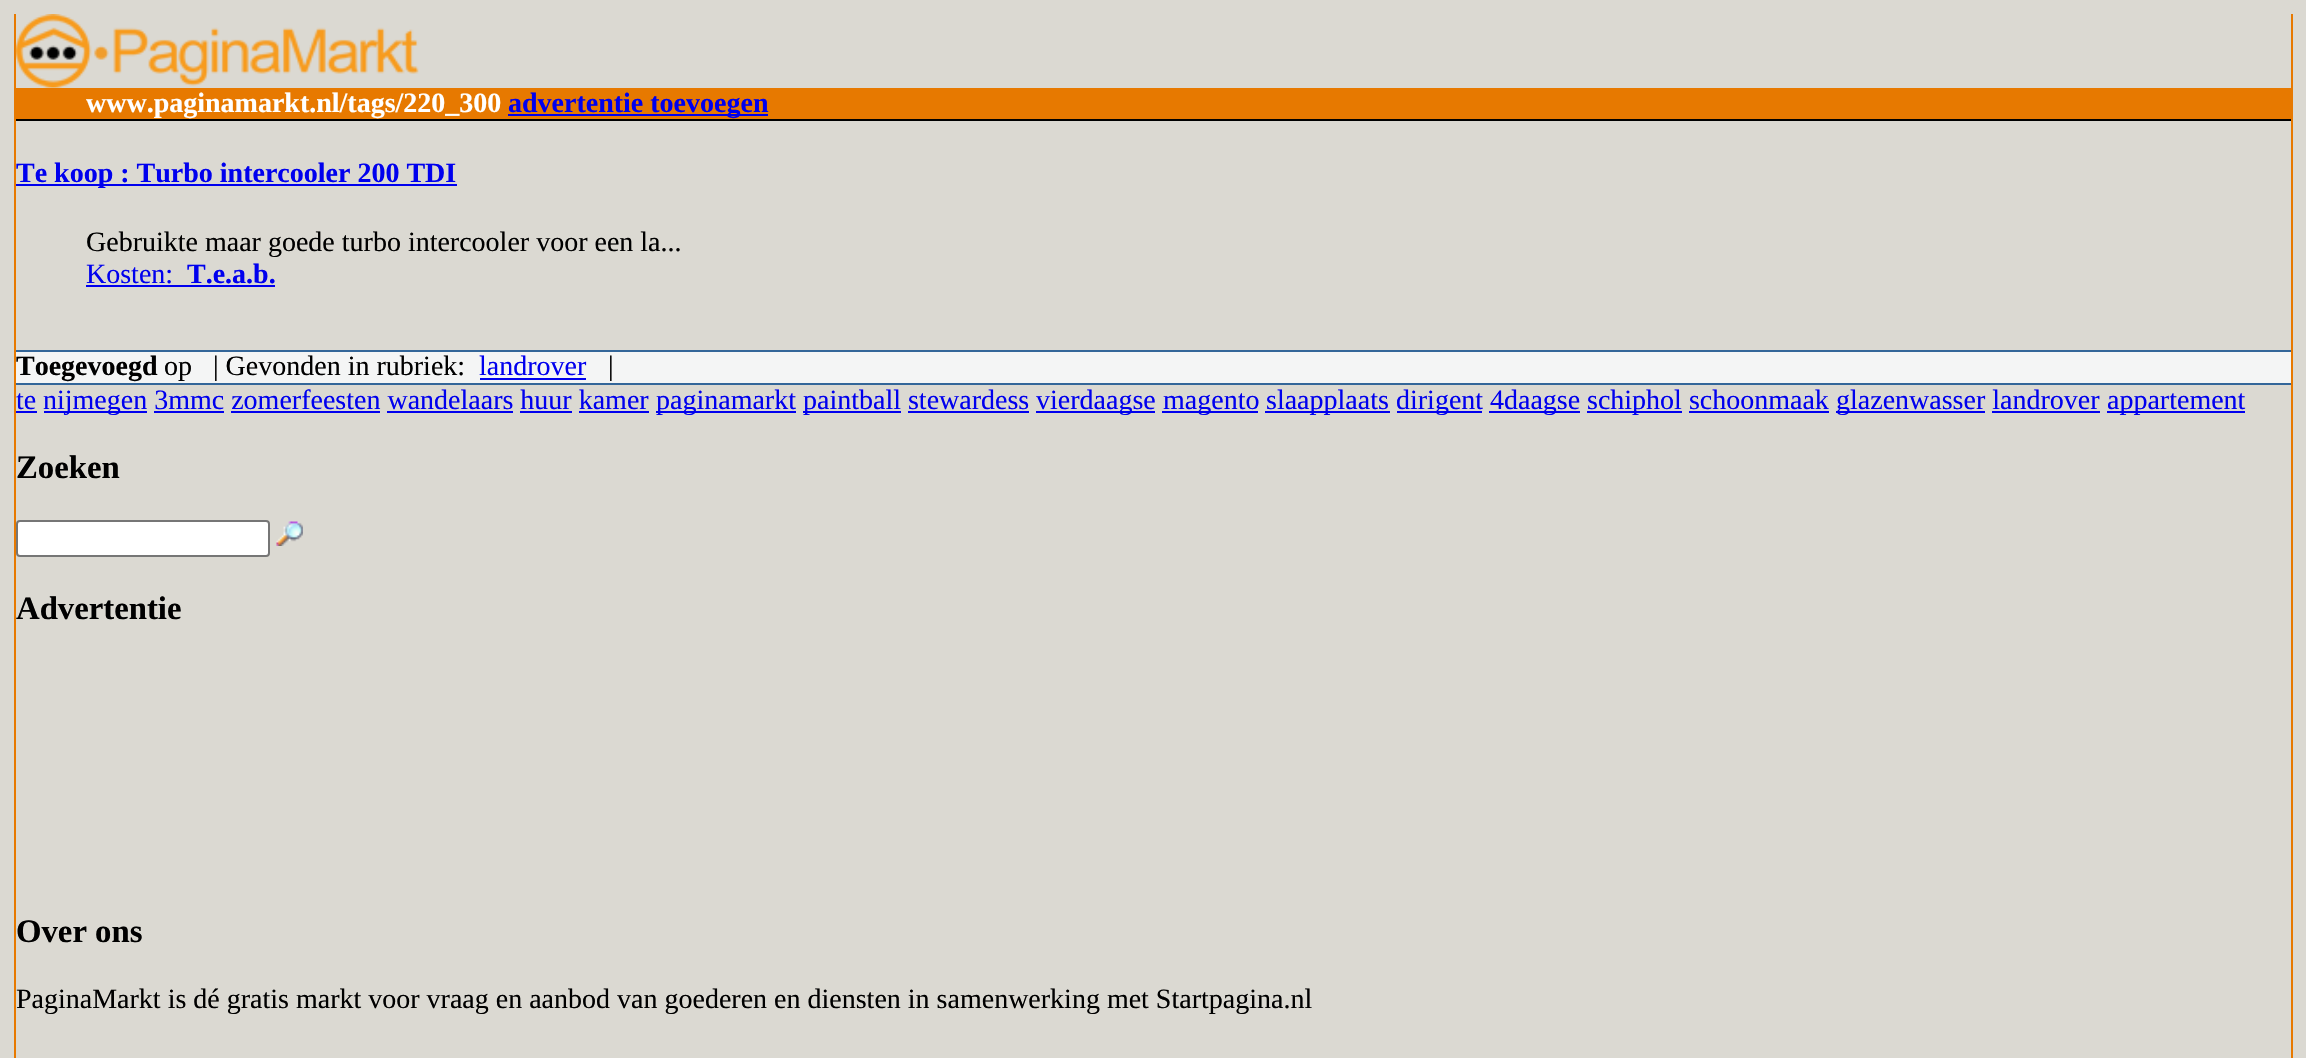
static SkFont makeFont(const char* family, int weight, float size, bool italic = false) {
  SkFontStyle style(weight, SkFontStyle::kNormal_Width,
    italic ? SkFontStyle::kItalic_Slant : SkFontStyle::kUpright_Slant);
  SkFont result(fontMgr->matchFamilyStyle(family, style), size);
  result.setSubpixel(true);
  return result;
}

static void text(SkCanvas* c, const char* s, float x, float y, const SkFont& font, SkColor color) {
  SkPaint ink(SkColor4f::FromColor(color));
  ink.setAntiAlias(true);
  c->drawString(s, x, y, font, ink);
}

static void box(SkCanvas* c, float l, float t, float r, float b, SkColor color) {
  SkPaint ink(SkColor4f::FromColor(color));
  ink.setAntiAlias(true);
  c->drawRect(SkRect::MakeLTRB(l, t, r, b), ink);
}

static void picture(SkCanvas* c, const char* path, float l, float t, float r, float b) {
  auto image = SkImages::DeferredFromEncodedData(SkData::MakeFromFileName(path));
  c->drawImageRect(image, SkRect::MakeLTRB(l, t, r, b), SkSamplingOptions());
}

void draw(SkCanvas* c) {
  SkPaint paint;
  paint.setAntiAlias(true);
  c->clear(0xffdbd9d2);
  box(c, 2291, 14, 2293, 1058, 0xffe77900);
  box(c, 14, 14, 16, 1058, 0xffe77900);
  picture(c, "img_01.png", 15, 14, 419, 88);
  box(c, 16, 88, 2291, 119, 0xffe77900);
  SkFont face1 = makeFont("Liberation Serif", 700, 28);
  text(c, "www.paginamarkt.nl/tags/220_300", 86, 112, face1, 0xffffffff);
  box(c, 508, 114, 768, 116, 0xff0000ee);
  text(c, "advertentie toevoegen", 508, 112, face1, 0xff0000ee);
  box(c, 16, 119, 2291, 121, 0xff000000);
  box(c, 16, 184, 457, 186, 0xff0000ee);
  text(c, "Te koop : Turbo intercooler 200 TDI", 16, 182, face1, 0xff0000ee);
  SkFont face2 = makeFont("Liberation Serif", 400, 28);
  text(c, "Gebruikte maar goede turbo intercooler voor een la...", 86, 251, face2, 0xff000000);
  text(c, "Kosten:", 86, 283, face2, 0xff0000ee);
  box(c, 86, 285, 275, 287, 0xff0000ee);
  text(c, "T.e.a.b.", 187, 283, face1, 0xff0000ee);
  box(c, 16, 352, 2291, 383, 0xfff4f5f5);
  box(c, 16, 350, 2291, 352, 0xff336699);
  box(c, 16, 383, 2291, 385, 0xff336699);
  text(c, "Toegevoegd", 16, 375, face1, 0xff000000);
  text(c, "op   | Gevonden in rubriek:", 164, 375, face2, 0xff000000);
  text(c, "landrover", 479, 375, face2, 0xff0000ee);
  box(c, 480, 378, 586, 380, 0xff0000ee);
  text(c, "|", 608, 375, face2, 0xff000000);
  text(c, "te", 16, 409, face2, 0xff0000ee);
  box(c, 16, 411, 37, 413, 0xff0000ee);
  box(c, 44, 411, 147, 413, 0xff0000ee);
  text(c, "nijmegen 3mmc zomerfeesten wandelaars huur kamer", 43, 409, face2, 0xff0000ee);
  box(c, 656, 411, 796, 413, 0xff0000ee);
  text(c, "paginamarkt", 656, 409, face2, 0xff0000ee);
  box(c, 803, 411, 901, 413, 0xff0000ee);
  text(c, "paintball stewardess", 803, 409, face2, 0xff0000ee);
  box(c, 1036, 411, 1155, 413, 0xff0000ee);
  text(c, "vierdaagse", 1036, 409, face2, 0xff0000ee);
  box(c, 1162, 411, 1258, 413, 0xff0000ee);
  text(c, "magento", 1163, 409, face2, 0xff0000ee);
  box(c, 1265, 411, 1390, 413, 0xff0000ee);
  text(c, "slaapplaats", 1266, 409, face2, 0xff0000ee);
  box(c, 1397, 411, 1482, 413, 0xff0000ee);
  text(c, "dirigent", 1396, 409, face2, 0xff0000ee);
  box(c, 1489, 411, 1580, 413, 0xff0000ee);
  text(c, "4daagse", 1490, 409, face2, 0xff0000ee);
  box(c, 1587, 411, 1682, 413, 0xff0000ee);
  text(c, "schiphol schoonmaak", 1587, 409, face2, 0xff0000ee);
  box(c, 1836, 411, 1985, 413, 0xff0000ee);
  text(c, "glazenwasser landrover", 1836, 409, face2, 0xff0000ee);
  box(c, 2107, 411, 2245, 413, 0xff0000ee);
  text(c, "appartement", 2107, 409, face2, 0xff0000ee);
  box(c, 154, 411, 224, 413, 0xff0000ee);
  box(c, 231, 411, 380, 413, 0xff0000ee);
  box(c, 387, 411, 513, 413, 0xff0000ee);
  box(c, 520, 411, 572, 413, 0xff0000ee);
  box(c, 579, 411, 649, 413, 0xff0000ee);
  box(c, 908, 411, 1029, 413, 0xff0000ee);
  box(c, 1689, 411, 1829, 413, 0xff0000ee);
  box(c, 1992, 411, 2100, 413, 0xff0000ee);
  SkFont face3 = makeFont("Liberation Serif", 700, 32.75f);
  text(c, "Zoeken", 16, 478, face3, 0xff000000);
  paint.setColor(0xffffffff);
  c->drawRoundRect(SkRect::MakeLTRB(17, 521, 269, 556), 3, 3, paint);
  paint.setStyle(SkPaint::kStroke_Style);
  paint.setStrokeWidth(2);
  paint.setColor(0xff767676);
  c->drawRoundRect(SkRect::MakeLTRB(17, 521, 269, 556), 3, 3, paint);
  picture(c, "img_02.png", 276, 521, 303, 546);
  text(c, "Advertentie", 16, 619, face3, 0xff000000);
  text(c, "Over ons", 16, 942, face3, 0xff000000);
  text(c, "PaginaMarkt is dé gratis markt voor vraag en aanbod van goederen en diensten in samenwerking met Startpagina.nl", 16, 1008, face2, 0xff000000);
}
